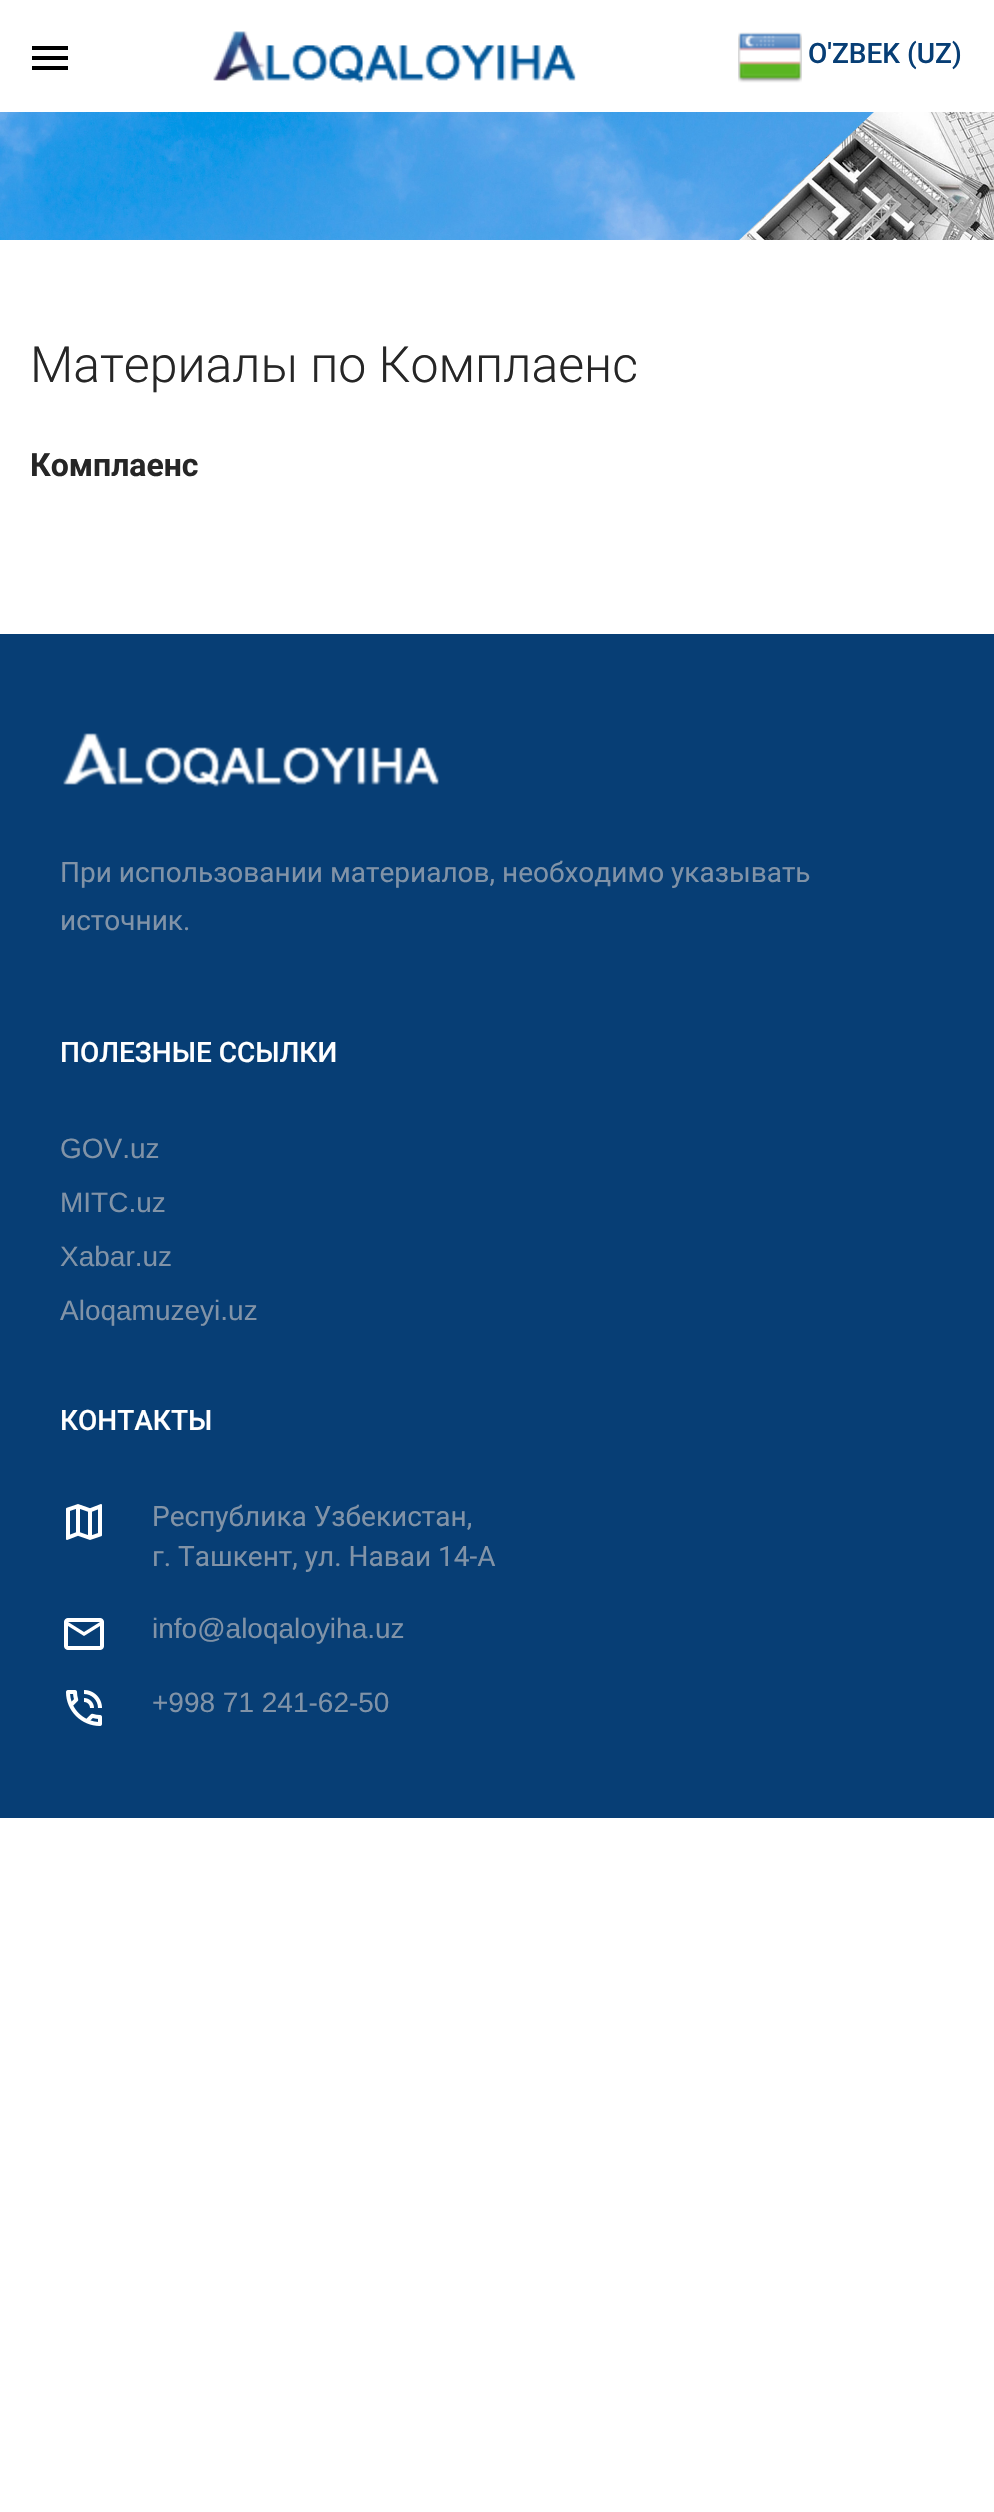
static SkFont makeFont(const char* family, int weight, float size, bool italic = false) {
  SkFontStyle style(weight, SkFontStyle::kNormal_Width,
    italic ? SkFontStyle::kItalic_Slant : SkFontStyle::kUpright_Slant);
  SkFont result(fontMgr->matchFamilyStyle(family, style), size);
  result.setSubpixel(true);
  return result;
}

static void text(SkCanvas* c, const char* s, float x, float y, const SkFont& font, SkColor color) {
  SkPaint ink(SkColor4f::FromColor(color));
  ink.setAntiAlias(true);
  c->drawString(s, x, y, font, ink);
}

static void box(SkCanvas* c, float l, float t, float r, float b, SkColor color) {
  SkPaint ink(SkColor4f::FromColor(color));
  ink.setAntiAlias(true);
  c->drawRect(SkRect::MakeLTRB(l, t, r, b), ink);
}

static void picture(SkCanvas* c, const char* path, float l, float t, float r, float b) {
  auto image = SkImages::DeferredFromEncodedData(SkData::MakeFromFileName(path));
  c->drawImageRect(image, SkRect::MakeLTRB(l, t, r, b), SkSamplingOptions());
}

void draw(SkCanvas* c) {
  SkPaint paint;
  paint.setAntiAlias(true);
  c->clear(0xffffffff);
  paint.setColor(0xff000000);
  c->drawPath(SkPathBuilder().moveTo(32, 70).lineTo(68, 70).lineTo(68, 66).lineTo(32, 66).close().moveTo(32, 60).lineTo(68, 60).lineTo(68, 56).lineTo(32, 56).close().moveTo(32, 46).lineTo(32, 50).lineTo(68, 50).lineTo(68, 46).close().detach(), paint);
  picture(c, "img_01.png", 213, 31, 576, 83);
  picture(c, "img_02.png", 738, 32, 802, 83);
  SkFont face1 = makeFont("Roboto", 500, 28);
  text(c, "O'ZBEK (UZ)", 808, 63, face1, 0xff073e75);
  picture(c, "img_03.png", 0, 112, 994, 240);
  SkFont face2 = makeFont("Roboto", 300, 50);
  text(c, "Материалы по Комплаенс", 30, 382, face2, 0xff262626);
  SkFont face3 = makeFont("Roboto", 700, 32);
  text(c, "Комплаенс", 30, 476, face3, 0xff262626);
  box(c, 0, 634, 994, 1818, 0xff073e75);
  picture(c, "img_04.png", 63, 733, 439, 787);
  SkFont face4 = makeFont("Roboto", 400, 28);
  text(c, "При использовании материалов, необходимо указывать", 60, 882, face4, 0xff8193a7);
  text(c, "источник.", 60, 930, face4, 0xff8193a7);
  text(c, "ПОЛЕЗНЫЕ ССЫЛКИ", 60, 1062, face1, 0xffffffff);
  SkFont face5 = makeFont("Liberation Sans", 400, 28);
  text(c, "GOV.uz", 60, 1158, face5, 0xff8193a7);
  text(c, "MITC.uz", 60, 1212, face5, 0xff8193a7);
  text(c, "Xabar.uz", 60, 1266, face5, 0xff8193a7);
  text(c, "Aloqamuzeyi.uz", 60, 1320, face5, 0xff8193a7);
  text(c, "КОНТАКТЫ", 60, 1430, face1, 0xffffffff);
  picture(c, "img_05.png", 66, 1504, 102, 1540);
  text(c, "Республика Узбекистан,", 152, 1526, face4, 0xff8193a7);
  text(c, "г. Ташкент, ул. Наваи 14-А", 152, 1566, face4, 0xff8193a7);
  picture(c, "img_06.png", 64, 1618, 104, 1650);
  text(c, "info@aloqaloyiha.uz", 152, 1638, face5, 0xff8193a7);
  picture(c, "img_07.png", 66, 1690, 102, 1726);
  text(c, "+998 71 241-62-50", 152, 1712, face5, 0xff8193a7);
}
